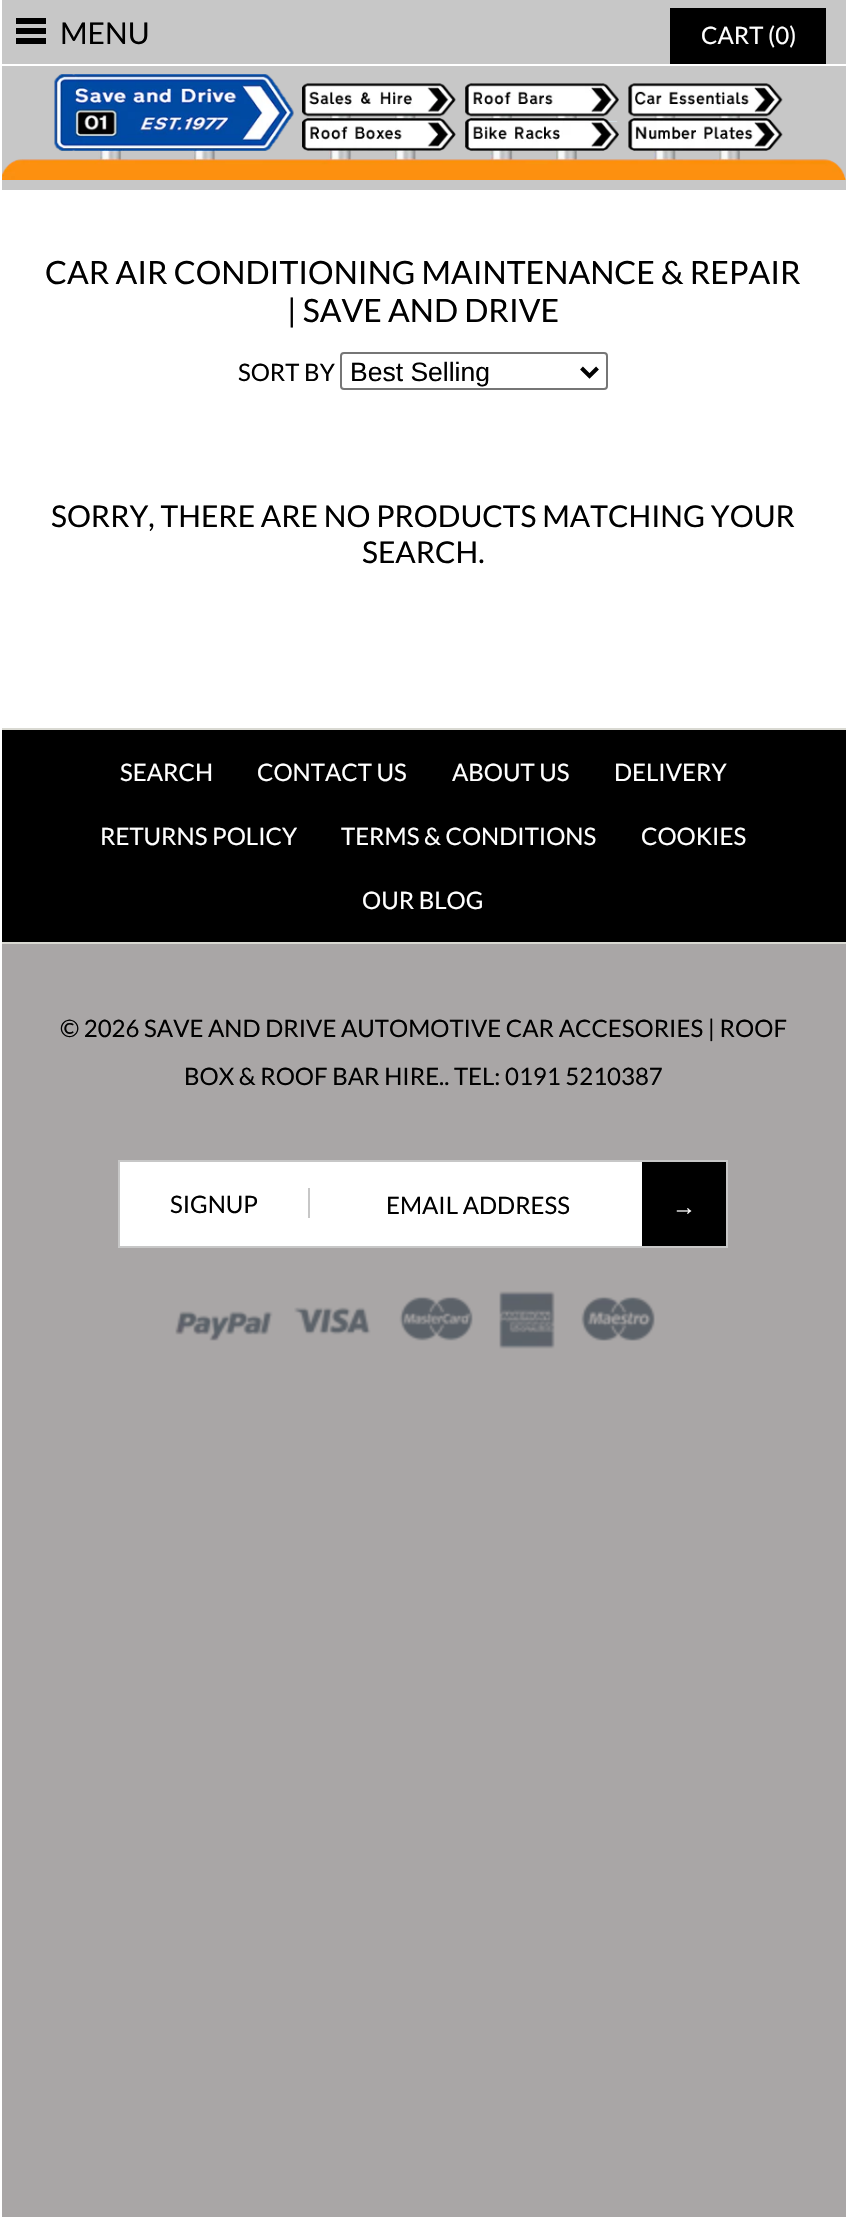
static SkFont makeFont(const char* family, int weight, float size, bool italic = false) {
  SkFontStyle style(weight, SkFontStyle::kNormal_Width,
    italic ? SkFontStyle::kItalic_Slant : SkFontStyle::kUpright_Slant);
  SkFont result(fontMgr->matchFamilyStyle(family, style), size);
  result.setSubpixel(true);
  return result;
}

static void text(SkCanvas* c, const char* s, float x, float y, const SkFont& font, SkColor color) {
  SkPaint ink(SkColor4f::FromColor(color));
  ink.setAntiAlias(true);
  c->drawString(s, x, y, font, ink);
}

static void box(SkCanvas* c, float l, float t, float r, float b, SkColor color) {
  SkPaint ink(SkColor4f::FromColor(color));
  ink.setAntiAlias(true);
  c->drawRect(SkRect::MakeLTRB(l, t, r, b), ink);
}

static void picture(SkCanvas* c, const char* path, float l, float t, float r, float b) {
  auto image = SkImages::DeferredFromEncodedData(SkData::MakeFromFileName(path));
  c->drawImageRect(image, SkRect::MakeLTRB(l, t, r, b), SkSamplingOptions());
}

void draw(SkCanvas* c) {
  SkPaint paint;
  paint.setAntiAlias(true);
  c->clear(0xffa9a6a6);
  box(c, 0, 190, 846, 192, 0xffffffff);
  box(c, 2, 0, 846, 190, 0xffc7c7c7);
  box(c, 0, 64, 846, 66, 0xffffffff);
  box(c, 0, 728, 846, 730, 0xffd9d9d2);
  box(c, 0, 942, 846, 944, 0xffd9d9d2);
  box(c, 0, 0, 2, 2217, 0xffffffff);
  box(c, 16, 18, 46, 24, 0xff000000);
  box(c, 16, 28, 46, 34, 0xff000000);
  SkFont face1 = makeFont("Lato", 400, 30);
  text(c, "MENU", 60, 44, face1, 0xff000000);
  box(c, 16, 38, 46, 44, 0xff000000);
  box(c, 670, 8, 826, 64, 0xff000000);
  SkFont face2 = makeFont("Lato", 400, 24);
  text(c, "CART (0)", 701, 44, face2, 0xffffffff);
  picture(c, "img_01.png", 2, 74, 846, 180);
  box(c, 2, 192, 846, 728, 0xffffffff);
  SkFont face3 = makeFont("Lato", 400, 32);
  text(c, "CAR AIR CONDITIONING MAINTENANCE & REPAIR", 45, 284, face3, 0xff000000);
  text(c, "| SAVE AND DRIVE", 287, 322, face3, 0xff000000);
  text(c, "SORT BY", 238, 381, face2, 0xff000000);
  paint.setStyle(SkPaint::kStroke_Style);
  paint.setStrokeWidth(2);
  paint.setColor(0xff767676);
  c->drawRoundRect(SkRect::MakeLTRB(341, 353, 607, 389), 3, 3, paint);
  paint.setStrokeWidth(4);
  paint.setColor(0xff000000);
  c->drawPath(SkPathBuilder().moveTo(581.5f, 368).lineTo(589.5f, 376).lineTo(597.5f, 368).detach(), paint);
  SkFont face4 = makeFont("Liberation Sans", 400, 26.5f);
  text(c, "Best Selling", 350, 381, face4, 0xff000000);
  text(c, "SORRY, THERE ARE NO PRODUCTS MATCHING YOUR", 51, 527, face1, 0xff000000);
  text(c, "SEARCH.", 362, 563, face1, 0xff000000);
  box(c, 2, 730, 846, 942, 0xff000000);
  text(c, "SEARCH", 120, 781, face2, 0xffffffff);
  text(c, "CONTACT US", 257, 781, face2, 0xffffffff);
  text(c, "ABOUT US", 452, 781, face2, 0xffffffff);
  text(c, "DELIVERY", 614, 781, face2, 0xffffffff);
  text(c, "RETURNS POLICY", 100, 845, face2, 0xffffffff);
  text(c, "TERMS & CONDITIONS", 341, 845, face2, 0xffffffff);
  text(c, "COOKIES", 641, 845, face2, 0xffffffff);
  text(c, "OUR BLOG", 362, 909, face2, 0xffffffff);
  text(c, "© 2026 SAVE AND DRIVE AUTOMOTIVE CAR ACCESORIES | ROOF", 60, 1037, face2, 0xff000000);
  text(c, "BOX & ROOF BAR HIRE.. TEL: 0191 5210387", 184, 1085, face2, 0xff000000);
  box(c, 120, 1162, 642, 1246, 0xffffffff);
  paint.setStrokeWidth(2);
  paint.setColor(0xffc7c7c7);
  c->drawRect(SkRect::MakeLTRB(119, 1161, 727, 1247), paint);
  text(c, "SIGNUP", 170, 1213, face2, 0xff000000);
  box(c, 308, 1188, 310, 1218, 0xffc7c7c7);
  text(c, "EMAIL ADDRESS", 386, 1214, face2, 0xff000000);
  box(c, 642, 1162, 726, 1246, 0xff000000);
  SkFont face5 = makeFont("Liberation Serif", 400, 24);
  text(c, "→", 672, 1215, face5, 0xffffffff);
  picture(c, "img_02.png", 175, 1311, 273, 1341);
  picture(c, "img_03.png", 294, 1307, 371, 1335);
  picture(c, "img_04.png", 399, 1296, 473, 1341);
  picture(c, "img_05.png", 499, 1291, 555, 1349);
  picture(c, "img_06.png", 581, 1296, 655, 1341);
}
